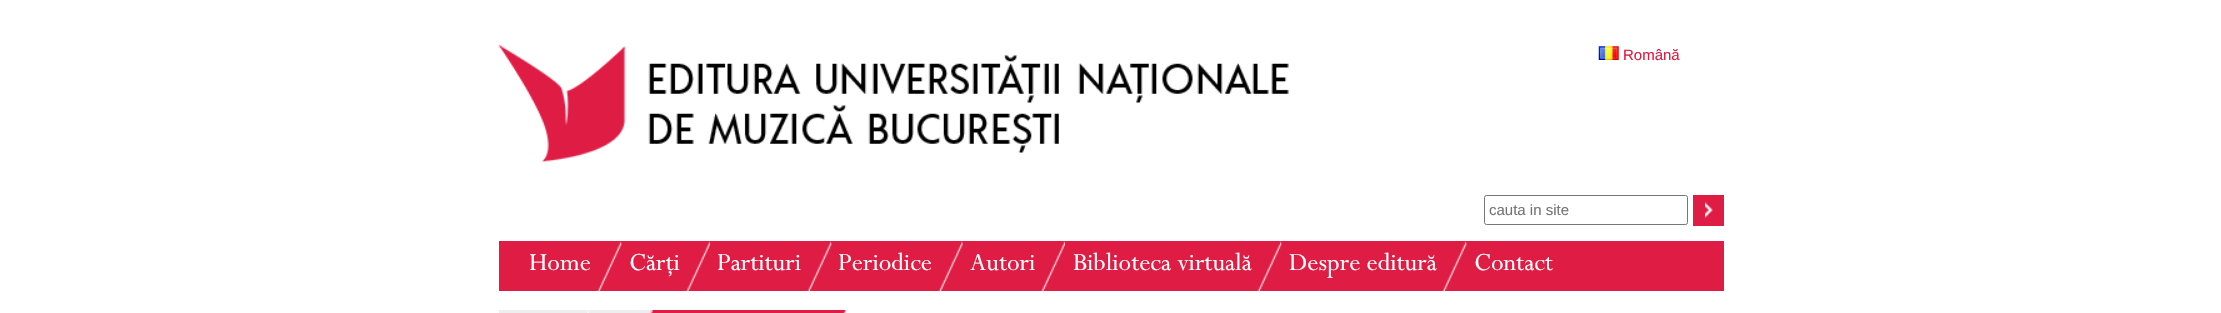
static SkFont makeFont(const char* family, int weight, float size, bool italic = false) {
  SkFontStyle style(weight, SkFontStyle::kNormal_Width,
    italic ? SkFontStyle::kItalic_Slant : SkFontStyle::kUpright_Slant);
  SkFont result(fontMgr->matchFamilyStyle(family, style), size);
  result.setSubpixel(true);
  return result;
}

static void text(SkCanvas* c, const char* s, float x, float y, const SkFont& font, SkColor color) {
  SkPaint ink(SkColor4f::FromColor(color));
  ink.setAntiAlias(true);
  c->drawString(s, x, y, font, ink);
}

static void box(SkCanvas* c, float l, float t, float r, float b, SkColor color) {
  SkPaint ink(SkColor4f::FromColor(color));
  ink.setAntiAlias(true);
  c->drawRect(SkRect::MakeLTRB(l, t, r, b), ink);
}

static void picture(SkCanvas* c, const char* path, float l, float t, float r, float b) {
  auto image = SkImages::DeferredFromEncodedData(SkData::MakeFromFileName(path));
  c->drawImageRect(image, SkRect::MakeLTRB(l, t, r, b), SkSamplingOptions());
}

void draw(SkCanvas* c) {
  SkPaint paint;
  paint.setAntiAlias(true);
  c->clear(0xffffffff);
  picture(c, "img_01.png", 498, 44, 1289, 163);
  picture(c, "img_02.png", 1598, 46, 1619, 60);
  SkFont face1 = makeFont("Liberation Sans", 400, 15);
  text(c, "Română", 1623, 60, face1, 0xffdf1c44);
  paint.setStyle(SkPaint::kStroke_Style);
  paint.setStrokeWidth(1);
  paint.setColor(0xff767676);
  c->drawRoundRect(SkRect::MakeLTRB(1484.5f, 195.5f, 1687.5f, 224.5f), 2, 2, paint);
  text(c, "cauta in site", 1489, 215, face1, 0xff757575);
  box(c, 1693, 195, 1724, 226, 0xffdf1c44);
  picture(c, "img_03.png", 1705, 202, 1713, 218);
  box(c, 499, 241, 1724, 291, 0xffdf1c44);
  SkFont face2 = makeFont("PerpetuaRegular", 400, 27.5f);
  text(c, "Home", 529, 270, face2, 0xffffffff);
  picture(c, "img_04.png", 597, 241, 622, 291);
  text(c, "Cărți", 629, 270, face2, 0xffffffff);
  picture(c, "img_05.png", 686, 241, 710, 291);
  text(c, "Partituri", 717, 270, face2, 0xffffffff);
  picture(c, "img_06.png", 807, 241, 832, 291);
  text(c, "Periodice", 838, 270, face2, 0xffffffff);
  picture(c, "img_07.png", 938, 241, 963, 291);
  text(c, "Autori", 970, 270, face2, 0xffffffff);
  picture(c, "img_05.png", 1041, 241, 1065, 291);
  text(c, "Biblioteca virtuală", 1073, 270, face2, 0xffffffff);
  picture(c, "img_08.png", 1257, 241, 1282, 291);
  text(c, "Despre editură", 1289, 270, face2, 0xffffffff);
  picture(c, "img_04.png", 1442, 241, 1467, 291);
  text(c, "Contact", 1474, 270, face2, 0xffffffff);
  box(c, 499, 310, 635, 313, 0xffeeeeee);
  box(c, 652, 310, 846, 313, 0xffdf1c44);
  picture(c, "img_09.png", 843, 310, 847, 313);
  picture(c, "img_10.png", 635, 310, 653, 313);
  picture(c, "img_11.png", 587, 311, 589, 313);
}
